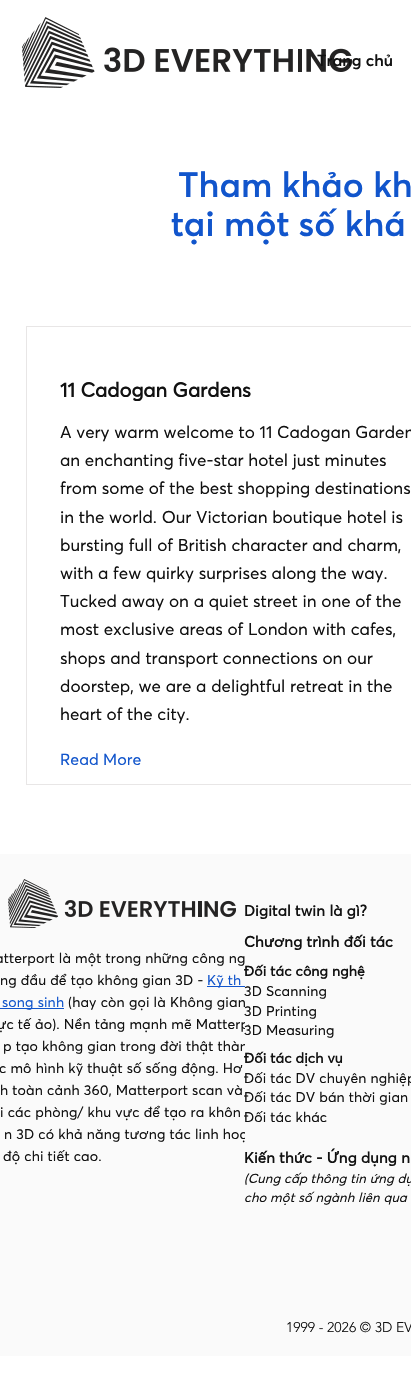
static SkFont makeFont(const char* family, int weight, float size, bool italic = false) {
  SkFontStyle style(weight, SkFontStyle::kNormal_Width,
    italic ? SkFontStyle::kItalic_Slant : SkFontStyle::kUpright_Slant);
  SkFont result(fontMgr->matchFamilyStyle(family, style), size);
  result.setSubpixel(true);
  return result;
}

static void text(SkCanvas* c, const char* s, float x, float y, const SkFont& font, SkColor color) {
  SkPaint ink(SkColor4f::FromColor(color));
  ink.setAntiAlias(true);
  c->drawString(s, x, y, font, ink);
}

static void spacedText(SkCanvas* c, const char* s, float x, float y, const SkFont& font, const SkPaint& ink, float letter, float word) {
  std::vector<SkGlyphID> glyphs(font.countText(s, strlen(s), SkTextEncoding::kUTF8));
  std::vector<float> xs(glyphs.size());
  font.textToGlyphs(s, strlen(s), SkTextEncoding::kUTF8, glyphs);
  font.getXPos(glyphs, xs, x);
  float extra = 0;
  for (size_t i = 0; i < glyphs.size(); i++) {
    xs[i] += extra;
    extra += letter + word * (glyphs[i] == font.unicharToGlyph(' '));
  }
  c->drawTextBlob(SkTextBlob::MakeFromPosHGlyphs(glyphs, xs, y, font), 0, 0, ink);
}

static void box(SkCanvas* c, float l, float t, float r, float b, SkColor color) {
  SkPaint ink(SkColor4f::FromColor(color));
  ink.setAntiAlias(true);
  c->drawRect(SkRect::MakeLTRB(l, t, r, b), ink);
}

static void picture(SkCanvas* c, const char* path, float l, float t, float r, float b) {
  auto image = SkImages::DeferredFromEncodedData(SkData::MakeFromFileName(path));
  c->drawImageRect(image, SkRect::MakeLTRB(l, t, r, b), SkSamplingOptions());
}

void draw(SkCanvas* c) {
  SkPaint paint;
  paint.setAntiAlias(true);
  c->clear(0xffffffff);
  picture(c, "img_01.png", 22, 17, 352, 88);
  SkFont face1 = makeFont("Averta", 600, 16);
  text(c, "Trang chủ", 317, 66, face1, 0xff111111);
  SkFont face2 = makeFont("Averta", 600, 35);
  text(c, "Tham khảo kh", 178, 197, face2, 0xff1155cc);
  text(c, "tại một số khá", 171, 236, face2, 0xff1155cc);
  paint.setStyle(SkPaint::kStroke_Style);
  paint.setStrokeWidth(1);
  paint.setColor(0xffe8e6e6);
  c->drawRect(SkRect::MakeLTRB(26.5f, 326.5f, 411.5f, 784.5f), paint);
  SkFont face3 = makeFont("Averta", 700, 20);
  text(c, "11 Cadogan Gardens", 60, 397, face3, 0xff111111);
  SkFont face4 = makeFont("Averta", 400, 17);
  text(c, "A very warm welcome to 11 Cadogan Garden", 60, 438, face4, 0xff111111);
  text(c, "an enchanting five-star hotel just minutes", 60, 466, face4, 0xff111111);
  text(c, "from some of the best shopping destinations", 60, 494, face4, 0xff111111);
  text(c, "in the world. Our Victorian boutique hotel is", 60, 523, face4, 0xff111111);
  text(c, "bursting full of British character and charm,", 60, 551, face4, 0xff111111);
  text(c, "with a few quirky surprises along the way.", 60, 579, face4, 0xff111111);
  text(c, "Tucked away on a quiet street in one of the", 60, 607, face4, 0xff111111);
  text(c, "most exclusive areas of London with cafes,", 60, 635, face4, 0xff111111);
  text(c, "shops and transport connections on our", 60, 664, face4, 0xff111111);
  text(c, "doorstep, we are a delightful retreat in the", 60, 692, face4, 0xff111111);
  text(c, "heart of the city.", 60, 720, face4, 0xff111111);
  SkFont face5 = makeFont("Averta", 400, 16);
  text(c, "Read More", 60, 765, face5, 0xff1155cc);
  box(c, 0, 854, 411, 1356, 0xfffafafa);
  picture(c, "img_02.png", 8, 879, 236, 928);
  SkFont face6 = makeFont("Averta", 400, 14);
  paint.setStyle(SkPaint::kFill_Style);
  paint.setColor(0xff111111);
  spacedText(c, "atterport là một trong những công ng", -5, 963, face6, paint, 0.15f, 0);
  spacedText(c, "ng đầu để tạo không gian 3D -", 0, 985, face6, paint, 0.15f, 0);
  box(c, 207, 986, 245, 987, 0xff1155cc);
  paint.setColor(0xff1155cc);
  spacedText(c, "Kỹ th", 207, 985, face6, paint, 0.15f, 0);
  box(c, 0, 1008, 64, 1009, 0xff1155cc);
  spacedText(c, "song sinh", 2, 1007, face6, paint, 0.15f, 0);
  paint.setColor(0xff111111);
  spacedText(c, "(hay còn gọi là Không gian", 68, 1007, face6, paint, 0.15f, 0);
  spacedText(c, "ực tế ảo). Nền tảng mạnh mẽ Matterp", -3, 1029, face6, paint, 0.15f, 0);
  spacedText(c, "p tạo không gian trong đời thật thàn", 3, 1051, face6, paint, 0.15f, 0);
  spacedText(c, "c mô hình kỹ thuật số sống động. Hơ", -1, 1073, face6, paint, 0.15f, 0);
  spacedText(c, "h toàn cảnh 360, Matterport scan và", 0, 1095, face6, paint, 0.15f, 0);
  spacedText(c, "i các phòng/ khu vực để tạo ra khôn", 0, 1117, face6, paint, 0.15f, 0);
  spacedText(c, "n 3D có khả năng tương tác linh hoạ", 4, 1139, face6, paint, 0.15f, 0);
  spacedText(c, "độ chi tiết cao.", 3, 1161, face6, paint, 0.15f, 0);
  SkFont face7 = makeFont("Averta", 700, 15);
  spacedText(c, "Digital twin là gì?", 244, 916, face7, paint, 0.15f, 0);
  spacedText(c, "Chương trình đối tác", 244, 947, face7, paint, 0.15f, 0);
  SkFont face8 = makeFont("Averta", 700, 14);
  spacedText(c, "Đối tác công nghệ", 244, 976, face8, paint, 0.1f, 0);
  spacedText(c, "3D Scanning", 244, 996, face6, paint, 0.1f, 0);
  spacedText(c, "3D Printing", 244, 1016, face6, paint, 0.1f, 0);
  box(c, 245, 1022, 248, 1139, 0xfffafafa);
  spacedText(c, "3D Measuring", 244, 1035, face6, paint, 0.1f, 0);
  spacedText(c, "Đối tác dịch vụ", 244, 1063, face8, paint, 0.1f, 0);
  spacedText(c, "Đối tác DV chuyên nghiệp", 244, 1083, face6, paint, 0.1f, 0);
  spacedText(c, "Đối tác DV bán thời gian", 244, 1102, face6, paint, 0.1f, 0);
  spacedText(c, "Đối tác khác", 244, 1122, face6, paint, 0.1f, 0);
  spacedText(c, "Kiến thức - Ứng dụng n", 244, 1163, face7, paint, 0.15f, 0);
  SkFont face9 = makeFont("Averta", 400, 13, true);
  spacedText(c, "(Cung cấp thông tin ứng dụ", 244, 1183, face9, paint, 0.1f, 0);
  spacedText(c, "cho một số ngành liên qua", 244, 1202, face9, paint, 0.1f, 0);
  SkFont face10 = makeFont("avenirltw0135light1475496", 300, 14);
  text(c, "1999 - 2026 © 3D EV", 286, 1332, face10, 0xff111111);
}
